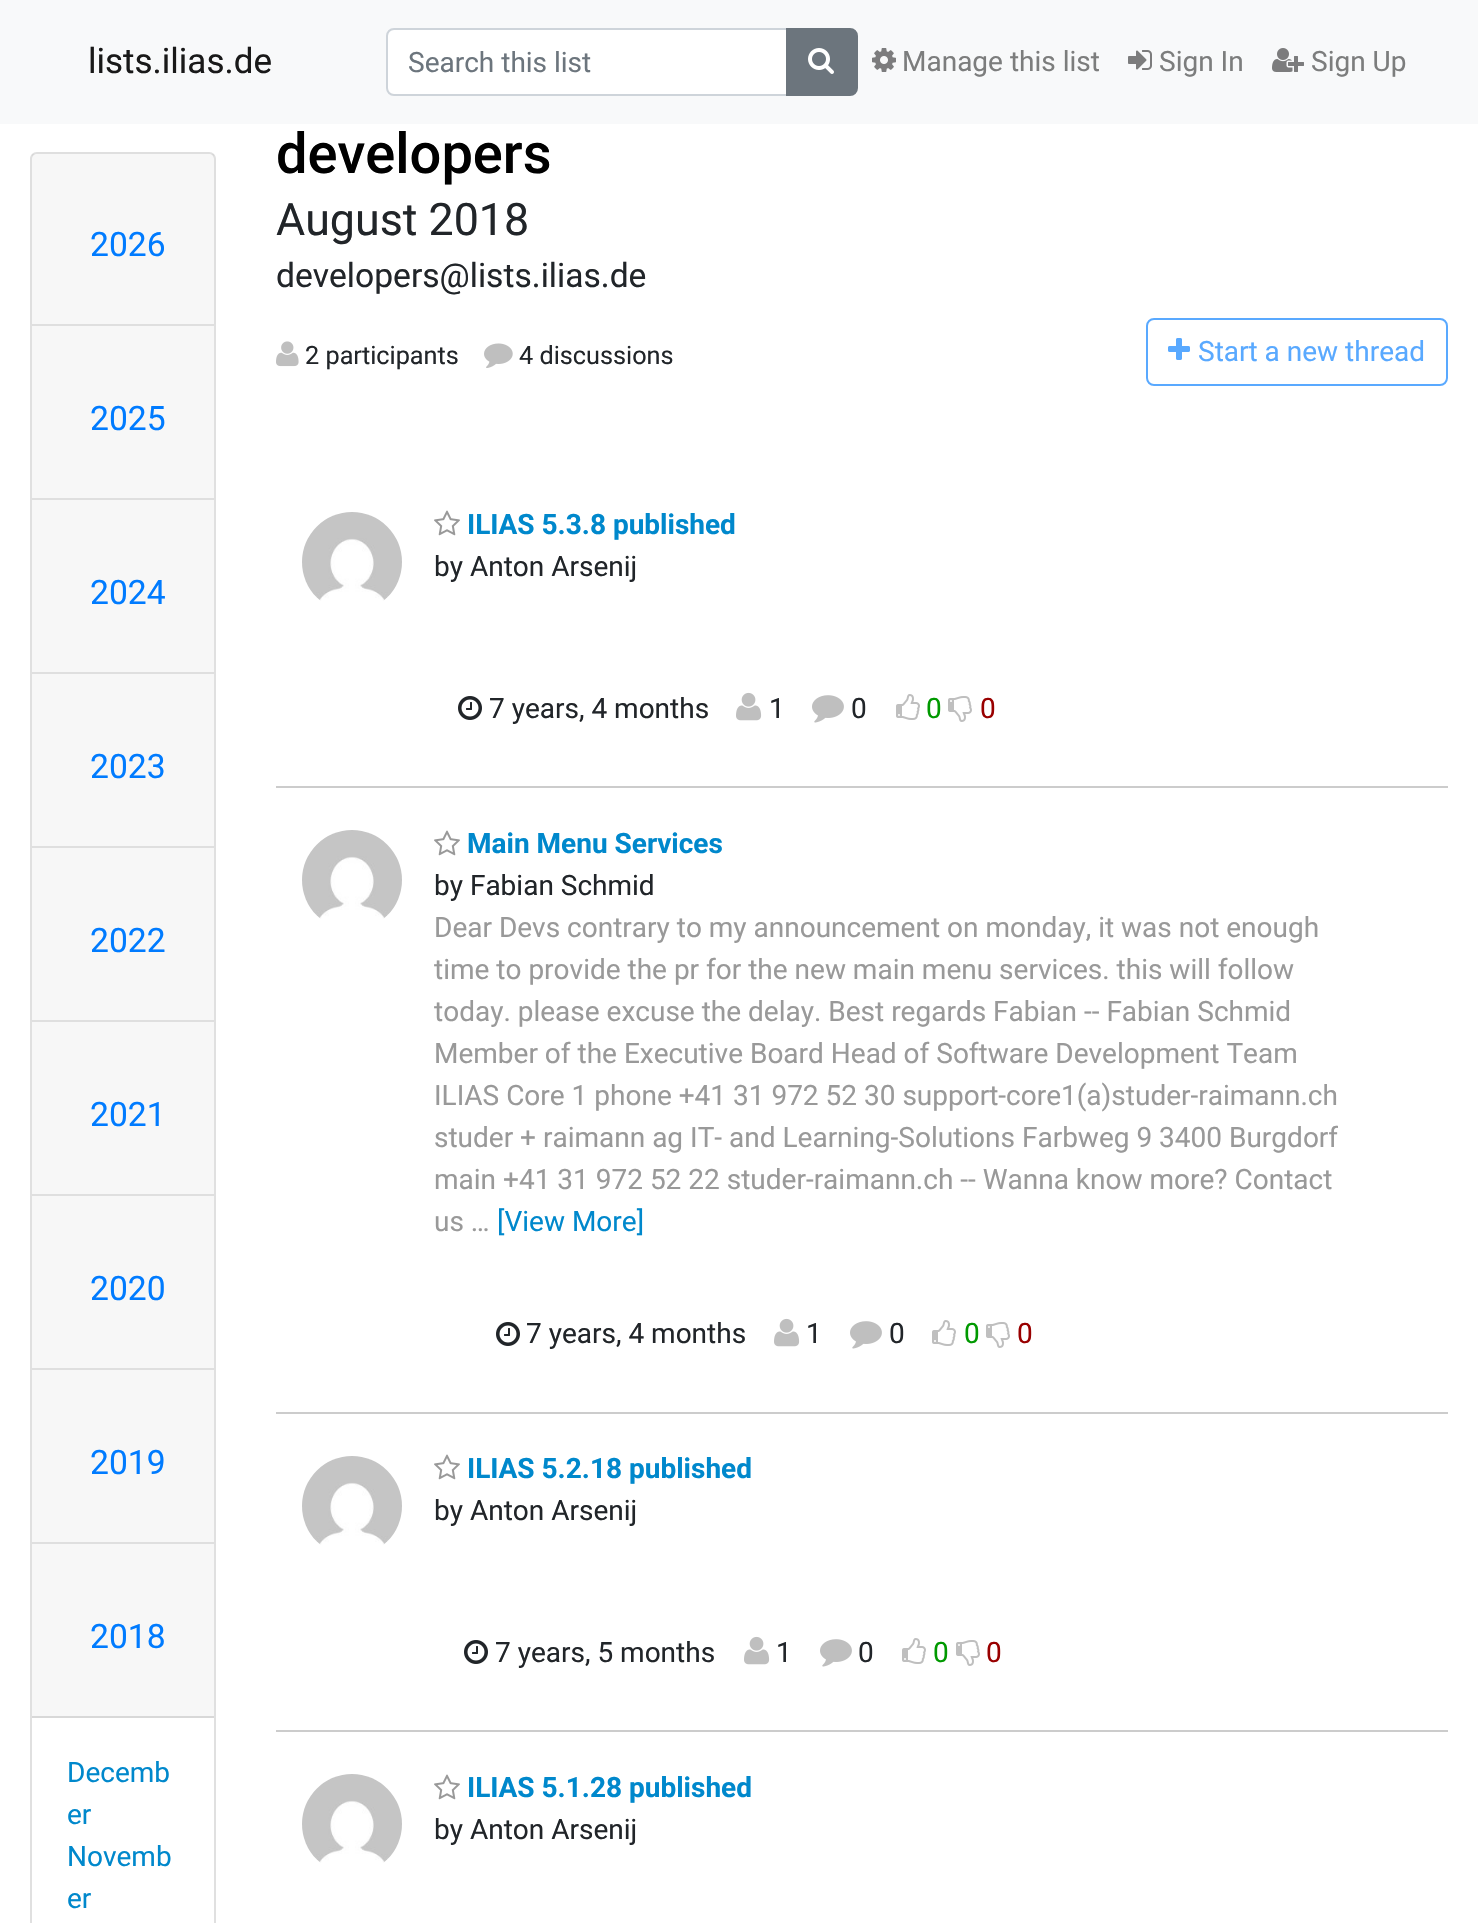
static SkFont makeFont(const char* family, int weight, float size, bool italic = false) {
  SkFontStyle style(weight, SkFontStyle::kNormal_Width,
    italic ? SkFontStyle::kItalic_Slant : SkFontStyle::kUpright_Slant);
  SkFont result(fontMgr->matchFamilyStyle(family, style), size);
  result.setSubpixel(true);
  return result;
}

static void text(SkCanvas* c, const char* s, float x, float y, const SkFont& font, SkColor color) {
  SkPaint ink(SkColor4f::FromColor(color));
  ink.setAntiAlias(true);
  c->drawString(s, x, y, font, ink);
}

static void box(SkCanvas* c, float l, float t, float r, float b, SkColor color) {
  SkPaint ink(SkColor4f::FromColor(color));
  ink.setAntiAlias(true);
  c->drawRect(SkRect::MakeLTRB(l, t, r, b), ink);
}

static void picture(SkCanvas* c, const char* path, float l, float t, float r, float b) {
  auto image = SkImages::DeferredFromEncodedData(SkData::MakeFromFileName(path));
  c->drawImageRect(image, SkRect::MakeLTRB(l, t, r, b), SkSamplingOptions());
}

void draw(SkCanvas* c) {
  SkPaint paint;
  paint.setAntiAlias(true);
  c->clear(0xffffffff);
  box(c, 0, 0, 1478, 124, 0xfff8f9fa);
  SkFont face1 = makeFont("Roboto", 400, 35);
  text(c, "lists.ilias.de", 88, 73, face1, 0xff191919);
  paint.setColor(0xffffffff);
  c->drawPath(SkPathBuilder().moveTo(393, 30).lineTo(786, 30).lineTo(786, 94).lineTo(393, 94).cubicTo(390, 94, 388, 92, 388, 89).lineTo(388, 35).cubicTo(388, 32, 390, 30, 393, 30).close().detach(), paint);
  paint.setStyle(SkPaint::kStroke_Style);
  paint.setStrokeWidth(2);
  paint.setColor(0xffced4da);
  c->drawPath(SkPathBuilder().moveTo(394, 29).lineTo(787, 29).lineTo(787, 95).lineTo(394, 95).cubicTo(390, 95, 387, 92, 387, 88).lineTo(387, 36).cubicTo(387, 32, 390, 29, 394, 29).close().detach(), paint);
  SkFont face2 = makeFont("Roboto", 400, 28);
  text(c, "Search this list", 408, 72, face2, 0xff6c757d);
  paint.setStyle(SkPaint::kFill_Style);
  paint.setColor(0xff6c757d);
  c->drawPath(SkPathBuilder().moveTo(787, 29).lineTo(850, 29).cubicTo(854, 29, 857, 32, 857, 36).lineTo(857, 88).cubicTo(857, 92, 854, 95, 850, 95).lineTo(787, 95).close().detach(), paint);
  paint.setStyle(SkPaint::kStroke_Style);
  c->drawPath(SkPathBuilder().moveTo(787, 29).lineTo(850, 29).cubicTo(854, 29, 857, 32, 857, 36).lineTo(857, 88).cubicTo(857, 92, 854, 95, 850, 95).lineTo(787, 95).close().detach(), paint);
  picture(c, "img_01.png", 808, 48, 834, 74);
  picture(c, "img_02.png", 872, 48, 896, 72);
  text(c, "Manage this list", 902, 71, face2, 0xff7c7d7d);
  picture(c, "img_03.png", 1128, 50, 1152, 70);
  text(c, "Sign In", 1159, 71, face2, 0xff7c7d7d);
  picture(c, "img_04.png", 1272, 48, 1304, 72);
  text(c, "Sign Up", 1311, 71, face2, 0xff7c7d7d);
  paint.setStyle(SkPaint::kFill_Style);
  paint.setColor(0xffdfdfdf);
  c->drawPath(SkPathBuilder(SkPathFillType::kEvenOdd).moveTo(37, 152).lineTo(209, 152).cubicTo(213, 152, 216, 155, 216, 159).lineTo(216, 324).lineTo(30, 324).lineTo(30, 159).cubicTo(30, 155, 33, 152, 37, 152).close().moveTo(37, 154).lineTo(209, 154).cubicTo(212, 154, 214, 156, 214, 159).lineTo(214, 324).lineTo(32, 324).lineTo(32, 159).cubicTo(32, 156, 34, 154, 37, 154).close().detach(), paint);
  box(c, 32, 154, 214, 324, 0x08000000);
  SkFont face3 = makeFont("Roboto", 400, 33.6f);
  text(c, "2026", 90, 256, face3, 0xff007bff);
  c->drawPath(SkPathBuilder().moveTo(30, 324).lineTo(216, 324).lineTo(214, 326).lineTo(32, 326).close().detach(), paint);
  paint.setColor(0x1f000000);
  c->drawPath(SkPathBuilder().moveTo(216, 324).lineTo(216, 498).lineTo(214, 498).lineTo(214, 326).close().detach(), paint);
  c->drawPath(SkPathBuilder().moveTo(30, 498).lineTo(30, 324).lineTo(32, 326).lineTo(32, 498).close().detach(), paint);
  box(c, 32, 326, 214, 498, 0xfff7f7f7);
  text(c, "2025", 90, 430, face3, 0xff007bff);
  paint.setColor(0xffdfdfdf);
  c->drawPath(SkPathBuilder().moveTo(30, 498).lineTo(216, 498).lineTo(214, 500).lineTo(32, 500).close().detach(), paint);
  paint.setColor(0x1f000000);
  c->drawPath(SkPathBuilder().moveTo(216, 498).lineTo(216, 672).lineTo(214, 672).lineTo(214, 500).close().detach(), paint);
  c->drawPath(SkPathBuilder().moveTo(30, 672).lineTo(30, 498).lineTo(32, 500).lineTo(32, 672).close().detach(), paint);
  box(c, 32, 500, 214, 672, 0xfff7f7f7);
  text(c, "2024", 90, 604, face3, 0xff007bff);
  paint.setColor(0xffdfdfdf);
  c->drawPath(SkPathBuilder().moveTo(30, 672).lineTo(216, 672).lineTo(214, 674).lineTo(32, 674).close().detach(), paint);
  paint.setColor(0x1f000000);
  c->drawPath(SkPathBuilder().moveTo(216, 672).lineTo(216, 846).lineTo(214, 846).lineTo(214, 674).close().detach(), paint);
  c->drawPath(SkPathBuilder().moveTo(30, 846).lineTo(30, 672).lineTo(32, 674).lineTo(32, 846).close().detach(), paint);
  box(c, 32, 674, 214, 846, 0xfff7f7f7);
  text(c, "2023", 90, 778, face3, 0xff007bff);
  paint.setColor(0xffdfdfdf);
  c->drawPath(SkPathBuilder().moveTo(30, 846).lineTo(216, 846).lineTo(214, 848).lineTo(32, 848).close().detach(), paint);
  paint.setColor(0x1f000000);
  c->drawPath(SkPathBuilder().moveTo(216, 846).lineTo(216, 1020).lineTo(214, 1020).lineTo(214, 848).close().detach(), paint);
  c->drawPath(SkPathBuilder().moveTo(30, 1020).lineTo(30, 846).lineTo(32, 848).lineTo(32, 1020).close().detach(), paint);
  box(c, 32, 848, 214, 1020, 0xfff7f7f7);
  text(c, "2022", 90, 952, face3, 0xff007bff);
  paint.setColor(0xffdfdfdf);
  c->drawPath(SkPathBuilder().moveTo(30, 1020).lineTo(216, 1020).lineTo(214, 1022).lineTo(32, 1022).close().detach(), paint);
  paint.setColor(0x1f000000);
  c->drawPath(SkPathBuilder().moveTo(216, 1020).lineTo(216, 1194).lineTo(214, 1194).lineTo(214, 1022).close().detach(), paint);
  c->drawPath(SkPathBuilder().moveTo(30, 1194).lineTo(30, 1020).lineTo(32, 1022).lineTo(32, 1194).close().detach(), paint);
  box(c, 32, 1022, 214, 1194, 0xfff7f7f7);
  text(c, "2021", 90, 1126, face3, 0xff007bff);
  paint.setColor(0xffdfdfdf);
  c->drawPath(SkPathBuilder().moveTo(30, 1194).lineTo(216, 1194).lineTo(214, 1196).lineTo(32, 1196).close().detach(), paint);
  paint.setColor(0x1f000000);
  c->drawPath(SkPathBuilder().moveTo(216, 1194).lineTo(216, 1368).lineTo(214, 1368).lineTo(214, 1196).close().detach(), paint);
  c->drawPath(SkPathBuilder().moveTo(30, 1368).lineTo(30, 1194).lineTo(32, 1196).lineTo(32, 1368).close().detach(), paint);
  box(c, 32, 1196, 214, 1368, 0xfff7f7f7);
  text(c, "2020", 90, 1300, face3, 0xff007bff);
  paint.setColor(0xffdfdfdf);
  c->drawPath(SkPathBuilder().moveTo(30, 1368).lineTo(216, 1368).lineTo(214, 1370).lineTo(32, 1370).close().detach(), paint);
  paint.setColor(0x1f000000);
  c->drawPath(SkPathBuilder().moveTo(216, 1368).lineTo(216, 1542).lineTo(214, 1542).lineTo(214, 1370).close().detach(), paint);
  c->drawPath(SkPathBuilder().moveTo(30, 1542).lineTo(30, 1368).lineTo(32, 1370).lineTo(32, 1542).close().detach(), paint);
  box(c, 32, 1370, 214, 1542, 0xfff7f7f7);
  text(c, "2019", 90, 1474, face3, 0xff007bff);
  paint.setColor(0xffdfdfdf);
  c->drawPath(SkPathBuilder().moveTo(30, 1542).lineTo(216, 1542).lineTo(214, 1544).lineTo(32, 1544).close().detach(), paint);
  paint.setColor(0x1f000000);
  c->drawPath(SkPathBuilder().moveTo(216, 1542).lineTo(216, 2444).lineTo(214, 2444).lineTo(214, 1544).close().detach(), paint);
  c->drawPath(SkPathBuilder().moveTo(30, 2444).lineTo(30, 1542).lineTo(32, 1544).lineTo(32, 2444).close().detach(), paint);
  box(c, 32, 1544, 214, 1716, 0xfff7f7f7);
  box(c, 32, 1716, 214, 1718, 0xffd8d8d8);
  text(c, "2018", 90, 1648, face3, 0xff007bff);
  text(c, "Decemb", 67, 1782, face2, 0xff0088cc);
  text(c, "er", 67, 1824, face2, 0xff0088cc);
  text(c, "Novemb", 67, 1866, face2, 0xff0088cc);
  text(c, "er", 67, 1908, face2, 0xff0088cc);
  SkFont face4 = makeFont("Roboto", 500, 56);
  text(c, "developers", 276, 173, face4, 0xff000000);
  SkFont face5 = makeFont("Roboto", 400, 44.75f);
  text(c, "August 2018", 276, 235, face5, 0xff212529);
  text(c, "developers@lists.ilias.de", 276, 287, face3, 0xff212529);
  picture(c, "img_05.png", 276, 341, 299, 367);
  SkFont face6 = makeFont("Roboto", 400, 25.25f);
  text(c, "2 participants", 305, 364, face6, 0xff212529);
  picture(c, "img_06.png", 484, 343, 513, 368);
  text(c, "4 discussions", 519, 364, face6, 0xff212529);
  paint.setStyle(SkPaint::kStroke_Style);
  paint.setColor(0xff59a9ff);
  c->drawRoundRect(SkRect::MakeLTRB(1147, 319, 1447, 385), 7, 7, paint);
  picture(c, "img_07.png", 1168, 338, 1190, 360);
  text(c, "Start a new thread", 1198, 361, face2, 0xff59a9ff);
  box(c, 276, 786, 1448, 788, 0xffcccccc);
  picture(c, "img_08.png", 302, 512, 402, 601);
  picture(c, "img_09.png", 434, 510, 460, 536);
  SkFont face7 = makeFont("Roboto", 700, 28);
  text(c, "ILIAS 5.3.8 published", 467, 534, face7, 0xff0088cc);
  text(c, "by Anton Arsenij", 434, 576, face2, 0xff212529);
  picture(c, "img_10.png", 458, 696, 482, 720);
  text(c, "7 years, 4 months", 489, 718, face2, 0xff212529);
  picture(c, "img_11.png", 736, 692, 762, 721);
  text(c, "1", 769, 718, face2, 0xff212529);
  picture(c, "img_12.png", 812, 695, 844, 723);
  text(c, "0", 851, 718, face2, 0xff212529);
  picture(c, "img_13.png", 896, 694, 920, 720);
  text(c, "0", 926, 718, face2, 0xff009900);
  picture(c, "img_14.png", 948, 696, 972, 722);
  text(c, "0", 980, 718, face2, 0xff990000);
  box(c, 276, 1412, 1448, 1414, 0xffcccccc);
  picture(c, "img_08.png", 302, 830, 402, 919);
  picture(c, "img_09.png", 434, 830, 460, 856);
  text(c, "Main Menu Services", 467, 853, face7, 0xff0088cc);
  text(c, "by Fabian Schmid", 434, 895, face2, 0xff212529);
  text(c, "Dear Devs contrary to my announcement on monday, it was not enough", 434, 937, face2, 0xff999999);
  text(c, "time to provide the pr for the new main menu services. this will follow", 434, 979, face2, 0xff999999);
  text(c, "today. please excuse the delay. Best regards Fabian -- Fabian Schmid", 434, 1021, face2, 0xff999999);
  text(c, "Member of the Executive Board Head of Software Development Team", 434, 1063, face2, 0xff999999);
  text(c, "ILIAS Core 1 phone +41 31 972 52 30 support-core1(a)studer-raimann.ch", 434, 1105, face2, 0xff999999);
  text(c, "studer + raimann ag IT- and Learning-Solutions Farbweg 9 3400 Burgdorf", 434, 1147, face2, 0xff999999);
  text(c, "main +41 31 972 52 22 studer-raimann.ch -- Wanna know more? Contact", 434, 1189, face2, 0xff999999);
  text(c, "us …", 434, 1231, face2, 0xff999999);
  text(c, "[View More]", 497, 1231, face2, 0xff0088cc);
  picture(c, "img_10.png", 496, 1322, 520, 1346);
  text(c, "7 years, 4 months", 526, 1343, face2, 0xff212529);
  picture(c, "img_11.png", 774, 1318, 800, 1347);
  text(c, "1", 806, 1343, face2, 0xff212529);
  picture(c, "img_12.png", 850, 1321, 882, 1349);
  text(c, "0", 889, 1343, face2, 0xff212529);
  picture(c, "img_13.png", 932, 1320, 956, 1346);
  text(c, "0", 964, 1343, face2, 0xff009900);
  picture(c, "img_14.png", 986, 1322, 1010, 1348);
  text(c, "0", 1017, 1343, face2, 0xff990000);
  box(c, 276, 1730, 1448, 1732, 0xffcccccc);
  picture(c, "img_15.png", 302, 1456, 402, 1545);
  picture(c, "img_09.png", 434, 1454, 460, 1480);
  text(c, "ILIAS 5.2.18 published", 467, 1478, face7, 0xff0088cc);
  text(c, "by Anton Arsenij", 434, 1520, face2, 0xff212529);
  picture(c, "img_10.png", 464, 1640, 488, 1664);
  text(c, "7 years, 5 months", 495, 1662, face2, 0xff212529);
  picture(c, "img_11.png", 744, 1636, 770, 1665);
  text(c, "1", 776, 1662, face2, 0xff212529);
  picture(c, "img_12.png", 820, 1639, 852, 1667);
  text(c, "0", 858, 1662, face2, 0xff212529);
  picture(c, "img_13.png", 902, 1638, 926, 1664);
  text(c, "0", 933, 1662, face2, 0xff009900);
  picture(c, "img_14.png", 956, 1640, 980, 1666);
  text(c, "0", 986, 1662, face2, 0xff990000);
  picture(c, "img_16.png", 302, 1774, 402, 1863);
  picture(c, "img_09.png", 434, 1774, 460, 1800);
  text(c, "ILIAS 5.1.28 published", 467, 1797, face7, 0xff0088cc);
  text(c, "by Anton Arsenij", 434, 1839, face2, 0xff212529);
}
